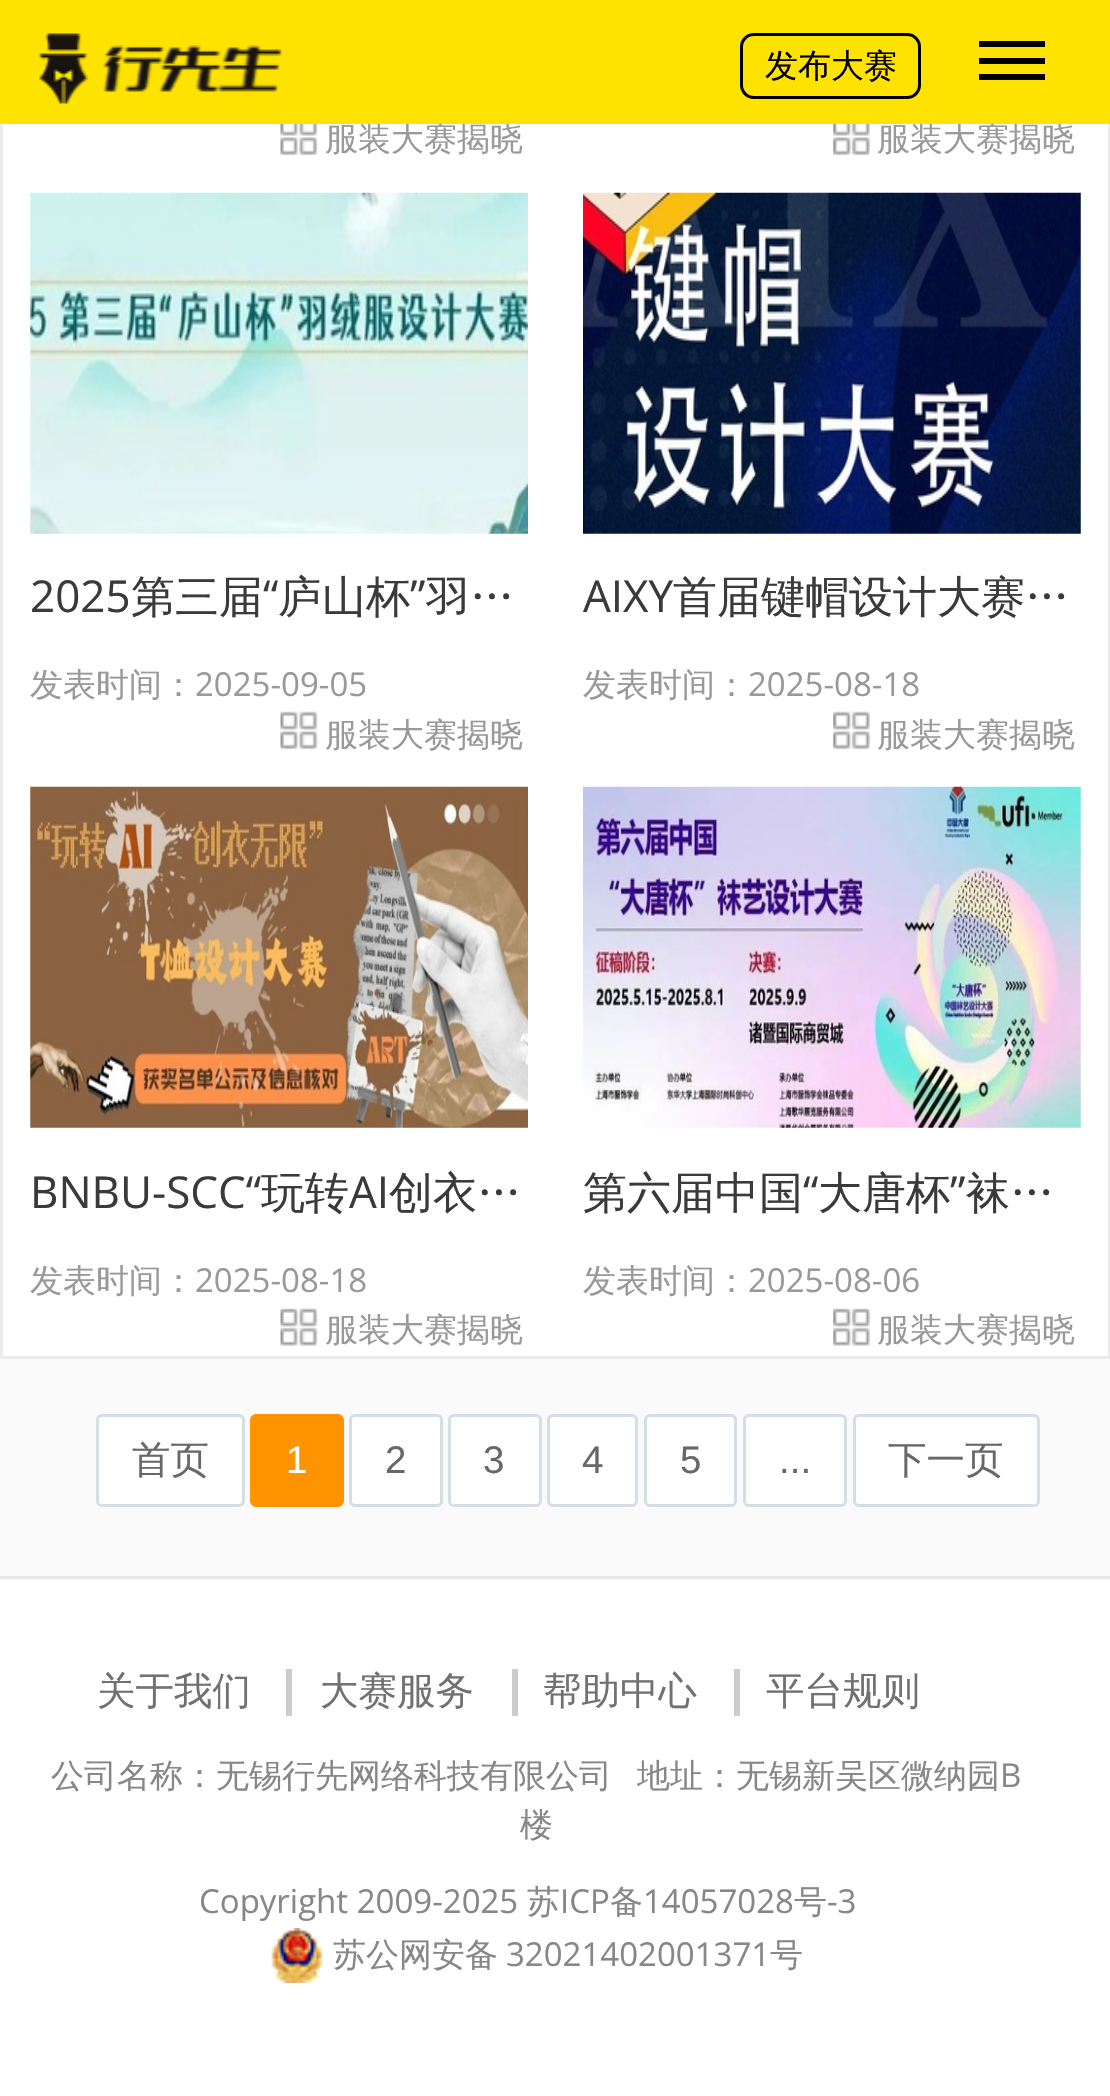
static SkFont makeFont(const char* family, int weight, float size, bool italic = false) {
  SkFontStyle style(weight, SkFontStyle::kNormal_Width,
    italic ? SkFontStyle::kItalic_Slant : SkFontStyle::kUpright_Slant);
  SkFont result(fontMgr->matchFamilyStyle(family, style), size);
  result.setSubpixel(true);
  return result;
}

static void text(SkCanvas* c, const char* s, float x, float y, const SkFont& font, SkColor color) {
  SkPaint ink(SkColor4f::FromColor(color));
  ink.setAntiAlias(true);
  c->drawString(s, x, y, font, ink);
}

static void box(SkCanvas* c, float l, float t, float r, float b, SkColor color) {
  SkPaint ink(SkColor4f::FromColor(color));
  ink.setAntiAlias(true);
  c->drawRect(SkRect::MakeLTRB(l, t, r, b), ink);
}

static void picture(SkCanvas* c, const char* path, float l, float t, float r, float b) {
  auto image = SkImages::DeferredFromEncodedData(SkData::MakeFromFileName(path));
  c->drawImageRect(image, SkRect::MakeLTRB(l, t, r, b), SkSamplingOptions());
}

void draw(SkCanvas* c) {
  SkPaint paint;
  paint.setAntiAlias(true);
  c->clear(0xfffafafa);
  box(c, 3, 124, 1108, 1356, 0xffffffff);
  paint.setStyle(SkPaint::kStroke_Style);
  paint.setStrokeWidth(3);
  paint.setColor(0xffececec);
  c->drawRect(SkRect::MakeLTRB(1.5f, -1.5f, 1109.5f, 1357.5f), paint);
  SkFont face1 = makeFont("WenQuanYi Zen Hei", 500, 33);
  text(c, "服装大赛揭晓", 325, 150, face1, 0xff999999);
  text(c, "服装大赛揭晓", 877, 150, face1, 0xff999999);
  box(c, 0, 0, 1110, 124, 0xffffe300);
  picture(c, "img_01.png", 39, 33, 283, 104);
  paint.setColor(0xff000000);
  c->drawRoundRect(SkRect::MakeLTRB(741.5f, 34.5f, 919.5f, 97.5f), 12.5f, 12.5f, paint);
  text(c, "发布大赛", 765, 77, face1, 0xff000000);
  box(c, 979, 41, 1045, 47, 0xff000000);
  box(c, 979, 58, 1045, 64, 0xff000000);
  box(c, 979, 74, 1045, 80, 0xff000000);
  picture(c, "img_02.png", 280, 124, 319, 156);
  picture(c, "img_03.png", 833, 124, 871, 156);
  picture(c, "img_04.png", 30, 192, 528, 534);
  SkFont face2 = makeFont("Open Sans", 400, 44);
  text(c, "2025", 30, 612, face2, 0xff3a3a3a);
  SkFont face3 = makeFont("WenQuanYi Zen Hei", 500, 44);
  text(c, "第三届", 131, 612, face3, 0xff3a3a3a);
  text(c, "“", 263, 612, face2, 0xff3a3a3a);
  text(c, "庐山杯", 278, 612, face3, 0xff3a3a3a);
  text(c, "”", 410, 612, face2, 0xff3a3a3a);
  text(c, "羽…", 426, 612, face3, 0xff3a3a3a);
  text(c, "发表时间：", 30, 696, face1, 0xff999999);
  SkFont face4 = makeFont("Open Sans", 400, 33);
  text(c, "2025-09-05", 195, 696, face4, 0xff999999);
  picture(c, "img_05.png", 280, 711, 319, 750);
  text(c, "服装大赛揭晓", 325, 746, face1, 0xff999999);
  picture(c, "img_06.png", 583, 192, 1081, 534);
  text(c, "AIXY", 583, 612, face2, 0xff3a3a3a);
  text(c, "首届键帽设计大赛…", 673, 612, face3, 0xff3a3a3a);
  text(c, "发表时间：", 583, 696, face1, 0xff999999);
  text(c, "2025-08-18", 748, 696, face4, 0xff999999);
  picture(c, "img_07.png", 833, 711, 871, 750);
  text(c, "服装大赛揭晓", 877, 746, face1, 0xff999999);
  picture(c, "img_08.png", 30, 786, 528, 1128);
  text(c, "BNBU-SCC“", 30, 1208, face2, 0xff3a3a3a);
  text(c, "玩转", 261, 1208, face3, 0xff3a3a3a);
  text(c, "AI", 349, 1208, face2, 0xff3a3a3a);
  text(c, "创衣…", 389, 1208, face3, 0xff3a3a3a);
  text(c, "发表时间：", 30, 1292, face1, 0xff999999);
  text(c, "2025-08-18", 195, 1292, face4, 0xff999999);
  picture(c, "img_09.png", 280, 1308, 319, 1346);
  text(c, "服装大赛揭晓", 325, 1341, face1, 0xff999999);
  picture(c, "img_10.png", 583, 786, 1081, 1128);
  text(c, "第六届中国", 583, 1208, face3, 0xff3a3a3a);
  text(c, "“", 803, 1208, face2, 0xff3a3a3a);
  text(c, "大唐杯", 818, 1208, face3, 0xff3a3a3a);
  text(c, "”", 950, 1208, face2, 0xff3a3a3a);
  text(c, "袜…", 966, 1208, face3, 0xff3a3a3a);
  text(c, "发表时间：", 583, 1292, face1, 0xff999999);
  text(c, "2025-08-06", 748, 1292, face4, 0xff999999);
  picture(c, "img_11.png", 833, 1308, 871, 1346);
  text(c, "服装大赛揭晓", 877, 1341, face1, 0xff999999);
  paint.setStyle(SkPaint::kFill_Style);
  paint.setColor(0xffffffff);
  c->drawRoundRect(SkRect::MakeLTRB(97.5f, 1415.5f, 243.5f, 1505.5f), 4.5f, 4.5f, paint);
  paint.setStyle(SkPaint::kStroke_Style);
  paint.setColor(0xffd4dfe3);
  c->drawRoundRect(SkRect::MakeLTRB(97.5f, 1415.5f, 243.5f, 1505.5f), 4.5f, 4.5f, paint);
  SkFont face5 = makeFont("WenQuanYi Zen Hei", 500, 38.5f);
  text(c, "首页", 132, 1473, face5, 0xff686868);
  paint.setStyle(SkPaint::kFill_Style);
  paint.setColor(0xffff9400);
  c->drawRoundRect(SkRect::MakeLTRB(251.5f, 1415.5f, 342.5f, 1505.5f), 4.5f, 4.5f, paint);
  paint.setStyle(SkPaint::kStroke_Style);
  c->drawRoundRect(SkRect::MakeLTRB(251.5f, 1415.5f, 342.5f, 1505.5f), 4.5f, 4.5f, paint);
  SkFont face6 = makeFont("Liberation Sans", 400, 38.5f);
  text(c, "1", 286, 1473, face6, 0xffffffff);
  paint.setStyle(SkPaint::kFill_Style);
  paint.setColor(0xffffffff);
  c->drawRoundRect(SkRect::MakeLTRB(350.5f, 1415.5f, 441.5f, 1505.5f), 4.5f, 4.5f, paint);
  paint.setStyle(SkPaint::kStroke_Style);
  paint.setColor(0xffd4dfe3);
  c->drawRoundRect(SkRect::MakeLTRB(350.5f, 1415.5f, 441.5f, 1505.5f), 4.5f, 4.5f, paint);
  text(c, "2", 385, 1473, face6, 0xff686868);
  paint.setStyle(SkPaint::kFill_Style);
  paint.setColor(0xffffffff);
  c->drawRoundRect(SkRect::MakeLTRB(449.5f, 1415.5f, 540.5f, 1505.5f), 4.5f, 4.5f, paint);
  paint.setStyle(SkPaint::kStroke_Style);
  paint.setColor(0xffd4dfe3);
  c->drawRoundRect(SkRect::MakeLTRB(449.5f, 1415.5f, 540.5f, 1505.5f), 4.5f, 4.5f, paint);
  text(c, "3", 483, 1473, face6, 0xff686868);
  paint.setStyle(SkPaint::kFill_Style);
  paint.setColor(0xffffffff);
  c->drawRoundRect(SkRect::MakeLTRB(548.5f, 1415.5f, 636.5f, 1505.5f), 4.5f, 4.5f, paint);
  paint.setStyle(SkPaint::kStroke_Style);
  paint.setColor(0xffd4dfe3);
  c->drawRoundRect(SkRect::MakeLTRB(548.5f, 1415.5f, 636.5f, 1505.5f), 4.5f, 4.5f, paint);
  text(c, "4", 582, 1473, face6, 0xff686868);
  paint.setStyle(SkPaint::kFill_Style);
  paint.setColor(0xffffffff);
  c->drawRoundRect(SkRect::MakeLTRB(645.5f, 1415.5f, 735.5f, 1505.5f), 4.5f, 4.5f, paint);
  paint.setStyle(SkPaint::kStroke_Style);
  paint.setColor(0xffd4dfe3);
  c->drawRoundRect(SkRect::MakeLTRB(645.5f, 1415.5f, 735.5f, 1505.5f), 4.5f, 4.5f, paint);
  text(c, "5", 680, 1473, face6, 0xff686868);
  paint.setStyle(SkPaint::kFill_Style);
  paint.setColor(0xffffffff);
  c->drawRoundRect(SkRect::MakeLTRB(744.5f, 1415.5f, 845.5f, 1505.5f), 4.5f, 4.5f, paint);
  paint.setStyle(SkPaint::kStroke_Style);
  paint.setColor(0xffd4dfe3);
  c->drawRoundRect(SkRect::MakeLTRB(744.5f, 1415.5f, 845.5f, 1505.5f), 4.5f, 4.5f, paint);
  text(c, "...", 779, 1473, face6, 0xff686868);
  paint.setStyle(SkPaint::kFill_Style);
  paint.setColor(0xffffffff);
  c->drawRoundRect(SkRect::MakeLTRB(854.5f, 1415.5f, 1038.5f, 1505.5f), 4.5f, 4.5f, paint);
  paint.setStyle(SkPaint::kStroke_Style);
  paint.setColor(0xffd4dfe3);
  c->drawRoundRect(SkRect::MakeLTRB(854.5f, 1415.5f, 1038.5f, 1505.5f), 4.5f, 4.5f, paint);
  text(c, "下一页", 888, 1473, face5, 0xff686868);
  box(c, 0, 1579, 1110, 2096, 0xffffffff);
  box(c, 0, 1576, 1110, 1579, 0xffe7e7e7);
  text(c, "关于我们", 97, 1704, face5, 0xff717171);
  box(c, 286, 1669, 292, 1716, 0xffcccccc);
  text(c, "大赛服务", 320, 1704, face5, 0xff717171);
  box(c, 512, 1669, 518, 1716, 0xffcccccc);
  text(c, "帮助中心", 543, 1704, face5, 0xff717171);
  box(c, 734, 1669, 740, 1716, 0xffcccccc);
  text(c, "平台规则", 766, 1704, face5, 0xff717171);
  text(c, "公司名称：无锡行先网络科技有限公司", 51, 1787, face1, 0xff878787);
  text(c, "地址：无锡新吴区微纳园", 637, 1787, face1, 0xff878787);
  text(c, "B", 1000, 1787, face4, 0xff878787);
  text(c, "楼", 520, 1836, face1, 0xff878787);
  text(c, "Copyright 2009-2025", 199, 1913, face4, 0xff878787);
  text(c, "苏", 527, 1913, face1, 0xff878787);
  text(c, "ICP", 560, 1913, face4, 0xff878787);
  text(c, "备", 610, 1913, face1, 0xff878787);
  text(c, "14057028", 643, 1913, face4, 0xff878787);
  text(c, "号", 794, 1913, face1, 0xff878787);
  text(c, "-3", 827, 1913, face4, 0xff878787);
  picture(c, "img_12.png", 271, 1928, 323, 1983);
  text(c, "苏公网安备", 333, 1966, face1, 0xff878787);
  text(c, "32021402001371", 506, 1966, face4, 0xff878787);
  text(c, "号", 770, 1966, face1, 0xff878787);
}
